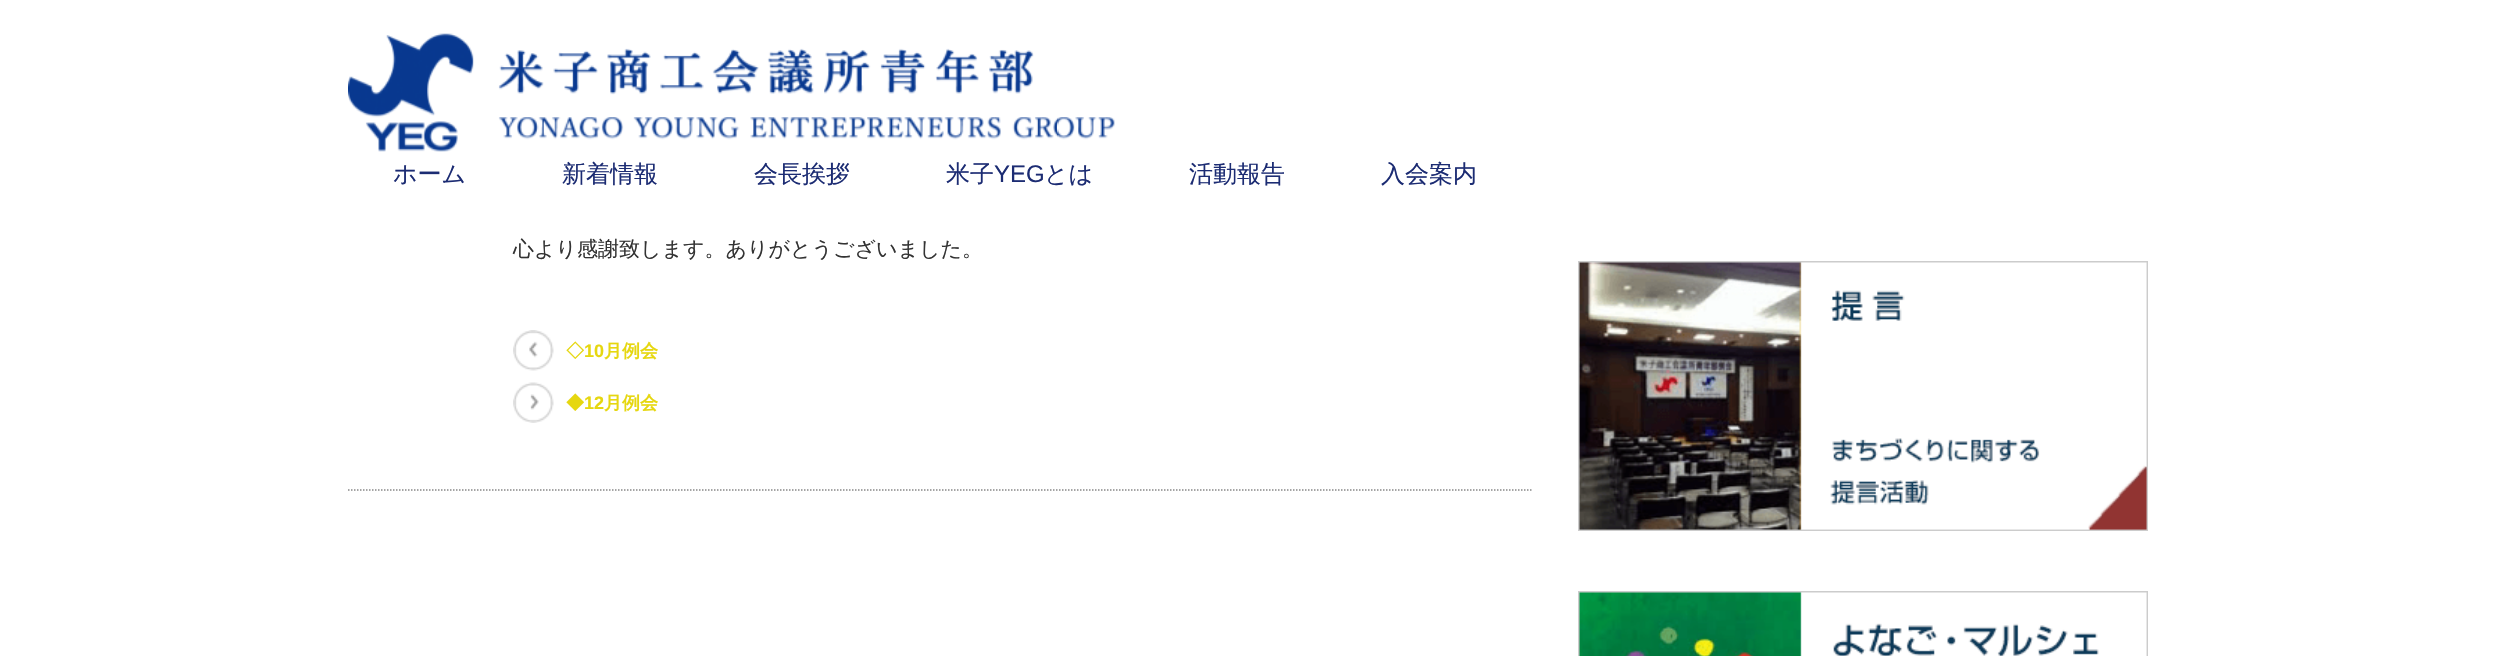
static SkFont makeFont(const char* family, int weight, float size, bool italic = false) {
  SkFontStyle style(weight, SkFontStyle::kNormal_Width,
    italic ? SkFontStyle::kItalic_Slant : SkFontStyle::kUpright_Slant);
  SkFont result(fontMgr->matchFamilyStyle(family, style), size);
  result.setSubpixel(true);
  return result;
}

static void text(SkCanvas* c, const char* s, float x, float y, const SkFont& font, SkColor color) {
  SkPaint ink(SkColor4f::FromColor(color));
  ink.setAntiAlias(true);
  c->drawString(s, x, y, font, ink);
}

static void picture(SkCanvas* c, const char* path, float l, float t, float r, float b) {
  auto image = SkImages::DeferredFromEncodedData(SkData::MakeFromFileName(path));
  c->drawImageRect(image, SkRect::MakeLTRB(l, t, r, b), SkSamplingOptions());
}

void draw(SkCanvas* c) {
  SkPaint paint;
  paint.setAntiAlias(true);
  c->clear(0xffffffff);
  picture(c, "img_01.png", 348, 33, 1115, 152);
  SkFont face1 = makeFont("WenQuanYi Zen Hei", 500, 24);
  text(c, "ホーム", 393, 182, face1, 0xff1c2c73);
  text(c, "新着情報", 562, 182, face1, 0xff1c2c73);
  text(c, "会長挨拶", 754, 182, face1, 0xff1c2c73);
  text(c, "米子", 946, 182, face1, 0xff1c2c73);
  SkFont face2 = makeFont("Liberation Sans", 400, 24);
  text(c, "YEG", 994, 182, face2, 0xff1c2c73);
  text(c, "とは", 1044, 182, face1, 0xff1c2c73);
  text(c, "活動報告", 1189, 182, face1, 0xff1c2c73);
  text(c, "入会案内", 1381, 182, face1, 0xff1c2c73);
  paint.setStyle(SkPaint::kStroke_Style);
  paint.setStrokeWidth(1.5f);
  paint.setColor(0xff878787);
  paint.setPathEffect(SkDashPathEffect::Make({{1.5f, 1.5f}}, 0));
  c->drawPath(SkPathBuilder().moveTo(348, 490).lineTo(1533, 490).detach(), paint);
  paint.setPathEffect(nullptr);
  SkFont face3 = makeFont("WenQuanYi Zen Hei", 500, 21);
  text(c, "心より感謝致します。ありがとうございました。", 513, 256, face3, 0xff333333);
  picture(c, "img_02.png", 513, 330, 554, 371);
  SkFont face4 = makeFont("WenQuanYi Zen Hei", 700, 18);
  text(c, "◇", 566, 357, face4, 0xffe6d710);
  SkFont face5 = makeFont("Liberation Sans", 700, 18);
  text(c, "10", 584, 357, face5, 0xffe6d710);
  text(c, "月例会", 604, 357, face4, 0xffe6d710);
  picture(c, "img_03.png", 513, 382, 554, 423);
  text(c, "◆", 566, 409, face4, 0xffe6d710);
  text(c, "12", 584, 409, face5, 0xffe6d710);
  text(c, "月例会", 604, 409, face4, 0xffe6d710);
  picture(c, "img_04.png", 1578, 261, 2148, 531);
  picture(c, "img_05.png", 1578, 591, 2148, 656);
}
